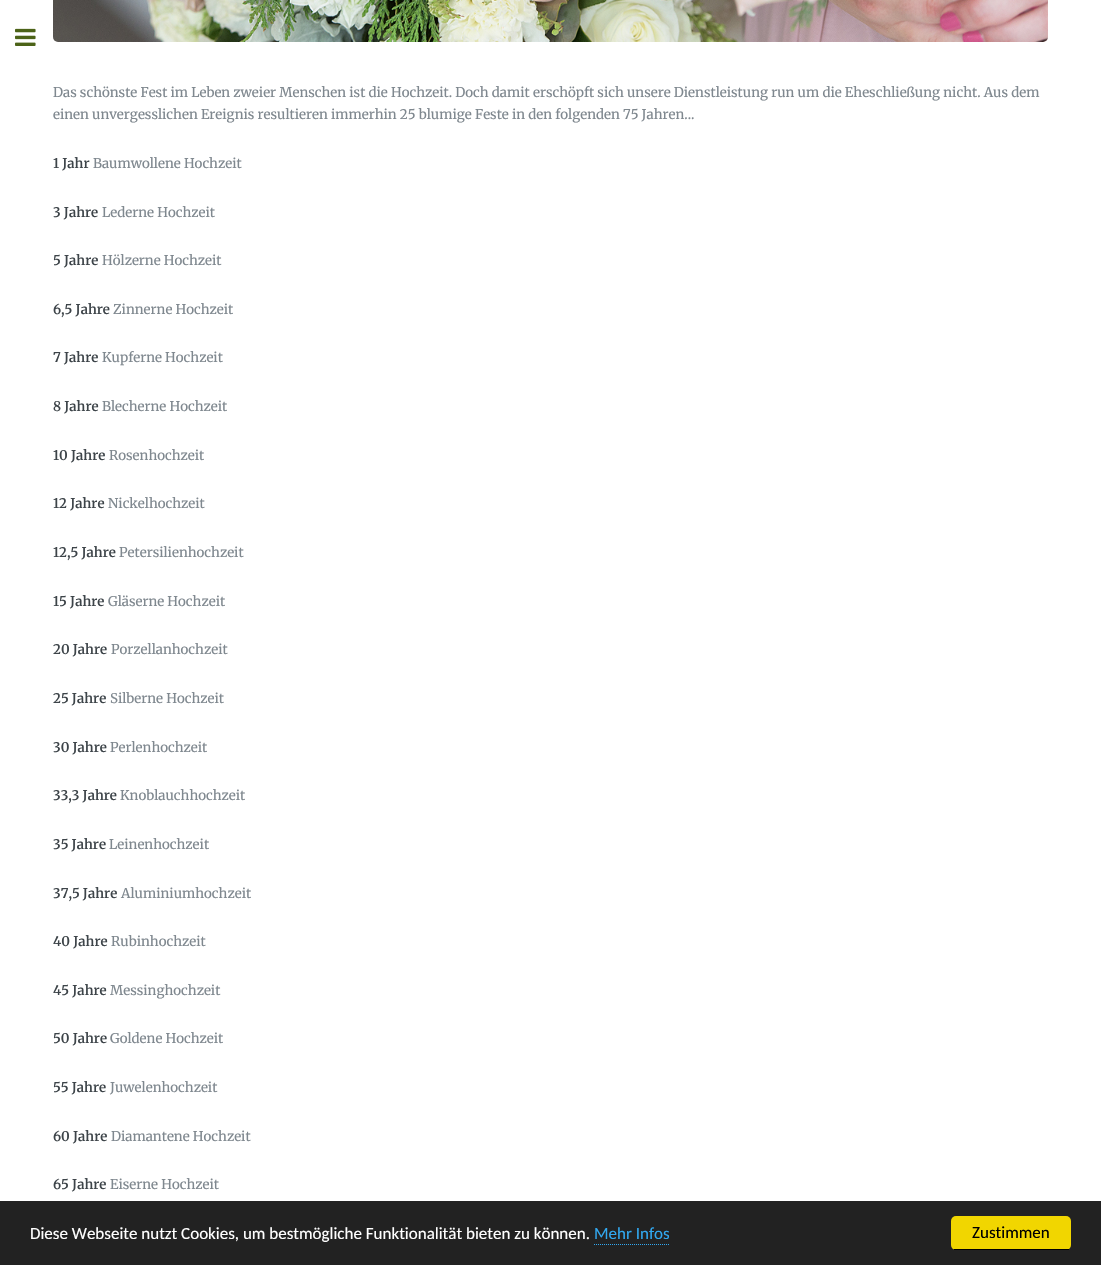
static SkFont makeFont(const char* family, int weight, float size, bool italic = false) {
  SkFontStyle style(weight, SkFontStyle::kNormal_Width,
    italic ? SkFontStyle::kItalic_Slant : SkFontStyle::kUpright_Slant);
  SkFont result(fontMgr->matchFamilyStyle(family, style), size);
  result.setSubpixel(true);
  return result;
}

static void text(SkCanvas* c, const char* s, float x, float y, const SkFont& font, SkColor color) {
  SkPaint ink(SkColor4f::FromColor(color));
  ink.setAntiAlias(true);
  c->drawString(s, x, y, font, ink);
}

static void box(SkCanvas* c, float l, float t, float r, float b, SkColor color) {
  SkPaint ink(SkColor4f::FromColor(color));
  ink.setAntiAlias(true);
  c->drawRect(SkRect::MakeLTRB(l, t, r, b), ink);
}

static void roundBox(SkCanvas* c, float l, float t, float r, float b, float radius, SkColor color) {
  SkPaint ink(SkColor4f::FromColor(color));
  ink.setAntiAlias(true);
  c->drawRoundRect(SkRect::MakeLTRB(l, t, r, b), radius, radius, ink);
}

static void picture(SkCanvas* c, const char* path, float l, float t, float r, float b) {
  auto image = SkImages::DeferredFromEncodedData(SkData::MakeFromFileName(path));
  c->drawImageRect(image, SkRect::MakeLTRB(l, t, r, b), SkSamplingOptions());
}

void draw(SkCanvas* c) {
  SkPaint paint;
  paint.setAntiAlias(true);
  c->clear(0xffffffff);
  picture(c, "img_01.png", 15, 28, 36, 46);
  picture(c, "img_02.png", 53, 0, 1048, 42);
  SkFont face1 = makeFont("Merriweather", 400, 13.33f);
  text(c, "Das schönste Fest im Leben zweier Menschen ist die Hochzeit. Doch damit erschöpft sich unsere Dienstleistung run um die Eheschließung nicht. Aus dem", 53, 97, face1, 0xff7f888f);
  text(c, "einen unvergesslichen Ereignis resultieren immerhin 25 blumige Feste in den folgenden 75 Jahren...", 53, 119, face1, 0xff7f888f);
  SkFont face2 = makeFont("Merriweather", 600, 13.33f);
  text(c, "1 Jahr", 53, 168, face2, 0xff3d4449);
  text(c, "Baumwollene Hochzeit", 93, 168, face1, 0xff7f888f);
  text(c, "3 Jahre", 53, 217, face2, 0xff3d4449);
  text(c, "Lederne Hochzeit", 102, 217, face1, 0xff7f888f);
  text(c, "5 Jahre", 53, 265, face2, 0xff3d4449);
  text(c, "Hölzerne Hochzeit", 102, 265, face1, 0xff7f888f);
  text(c, "6,5 Jahre", 53, 314, face2, 0xff3d4449);
  text(c, "Zinnerne Hochzeit", 113, 314, face1, 0xff7f888f);
  text(c, "7 Jahre", 53, 362, face2, 0xff3d4449);
  text(c, "Kupferne Hochzeit", 102, 362, face1, 0xff7f888f);
  text(c, "8 Jahre", 53, 411, face2, 0xff3d4449);
  text(c, "Blecherne Hochzeit", 102, 411, face1, 0xff7f888f);
  text(c, "10 Jahre", 53, 460, face2, 0xff3d4449);
  text(c, "Rosenhochzeit", 109, 460, face1, 0xff7f888f);
  text(c, "12 Jahre", 53, 508, face2, 0xff3d4449);
  text(c, "Nickelhochzeit", 108, 508, face1, 0xff7f888f);
  text(c, "12,5 Jahre", 53, 557, face2, 0xff3d4449);
  text(c, "Petersilienhochzeit", 119, 557, face1, 0xff7f888f);
  text(c, "15 Jahre", 53, 606, face2, 0xff3d4449);
  text(c, "Gläserne Hochzeit", 108, 606, face1, 0xff7f888f);
  text(c, "20 Jahre", 53, 654, face2, 0xff3d4449);
  text(c, "Porzellanhochzeit", 111, 654, face1, 0xff7f888f);
  text(c, "25 Jahre", 53, 703, face2, 0xff3d4449);
  text(c, "Silberne Hochzeit", 110, 703, face1, 0xff7f888f);
  text(c, "30 Jahre", 53, 752, face2, 0xff3d4449);
  text(c, "Perlenhochzeit", 110, 752, face1, 0xff7f888f);
  text(c, "33,3 Jahre", 53, 800, face2, 0xff3d4449);
  text(c, "Knoblauchhochzeit", 120, 800, face1, 0xff7f888f);
  text(c, "35 Jahre", 53, 849, face2, 0xff3d4449);
  text(c, "Leinenhochzeit", 109, 849, face1, 0xff7f888f);
  text(c, "37,5 Jahre", 53, 898, face2, 0xff3d4449);
  text(c, "Aluminiumhochzeit", 121, 898, face1, 0xff7f888f);
  text(c, "40 Jahre", 53, 946, face2, 0xff3d4449);
  text(c, "Rubinhochzeit", 111, 946, face1, 0xff7f888f);
  text(c, "45 Jahre", 53, 995, face2, 0xff3d4449);
  text(c, "Messinghochzeit", 110, 995, face1, 0xff7f888f);
  text(c, "50 Jahre", 53, 1043, face2, 0xff3d4449);
  text(c, "Goldene Hochzeit", 110, 1043, face1, 0xff7f888f);
  text(c, "55 Jahre", 53, 1092, face2, 0xff3d4449);
  text(c, "Juwelenhochzeit", 110, 1092, face1, 0xff7f888f);
  text(c, "60 Jahre", 53, 1141, face2, 0xff3d4449);
  text(c, "Diamantene Hochzeit", 111, 1141, face1, 0xff7f888f);
  text(c, "65 Jahre", 53, 1189, face2, 0xff3d4449);
  text(c, "Eiserne Hochzeit", 110, 1189, face1, 0xff7f888f);
  box(c, 0, 1201, 1101, 1265, 0xff222222);
  SkFont face3 = makeFont("Carlito", 400, 17);
  text(c, "Diese Webseite nutzt Cookies, um bestmögliche Funktionalität bieten zu können.", 30, 1239, face3, 0xffffffff);
  text(c, "Mehr Infos", 594, 1239, face3, 0xff31a8f0);
  paint.setStyle(SkPaint::kStroke_Style);
  paint.setStrokeWidth(1);
  paint.setColor(0xff31a8f0);
  paint.setPathEffect(SkDashPathEffect::Make({{1, 1}}, 0));
  c->drawPath(SkPathBuilder().moveTo(594, 1244.5f).lineTo(670, 1244.5f).detach(), paint);
  paint.setPathEffect(nullptr);
  roundBox(c, 951, 1216, 1071, 1250, 5, 0xfff1d600);
  box(c, 954, 1249, 1069, 1250, 0xff000000);
  text(c, "Zustimmen", 972, 1238, face3, 0xff000000);
}
